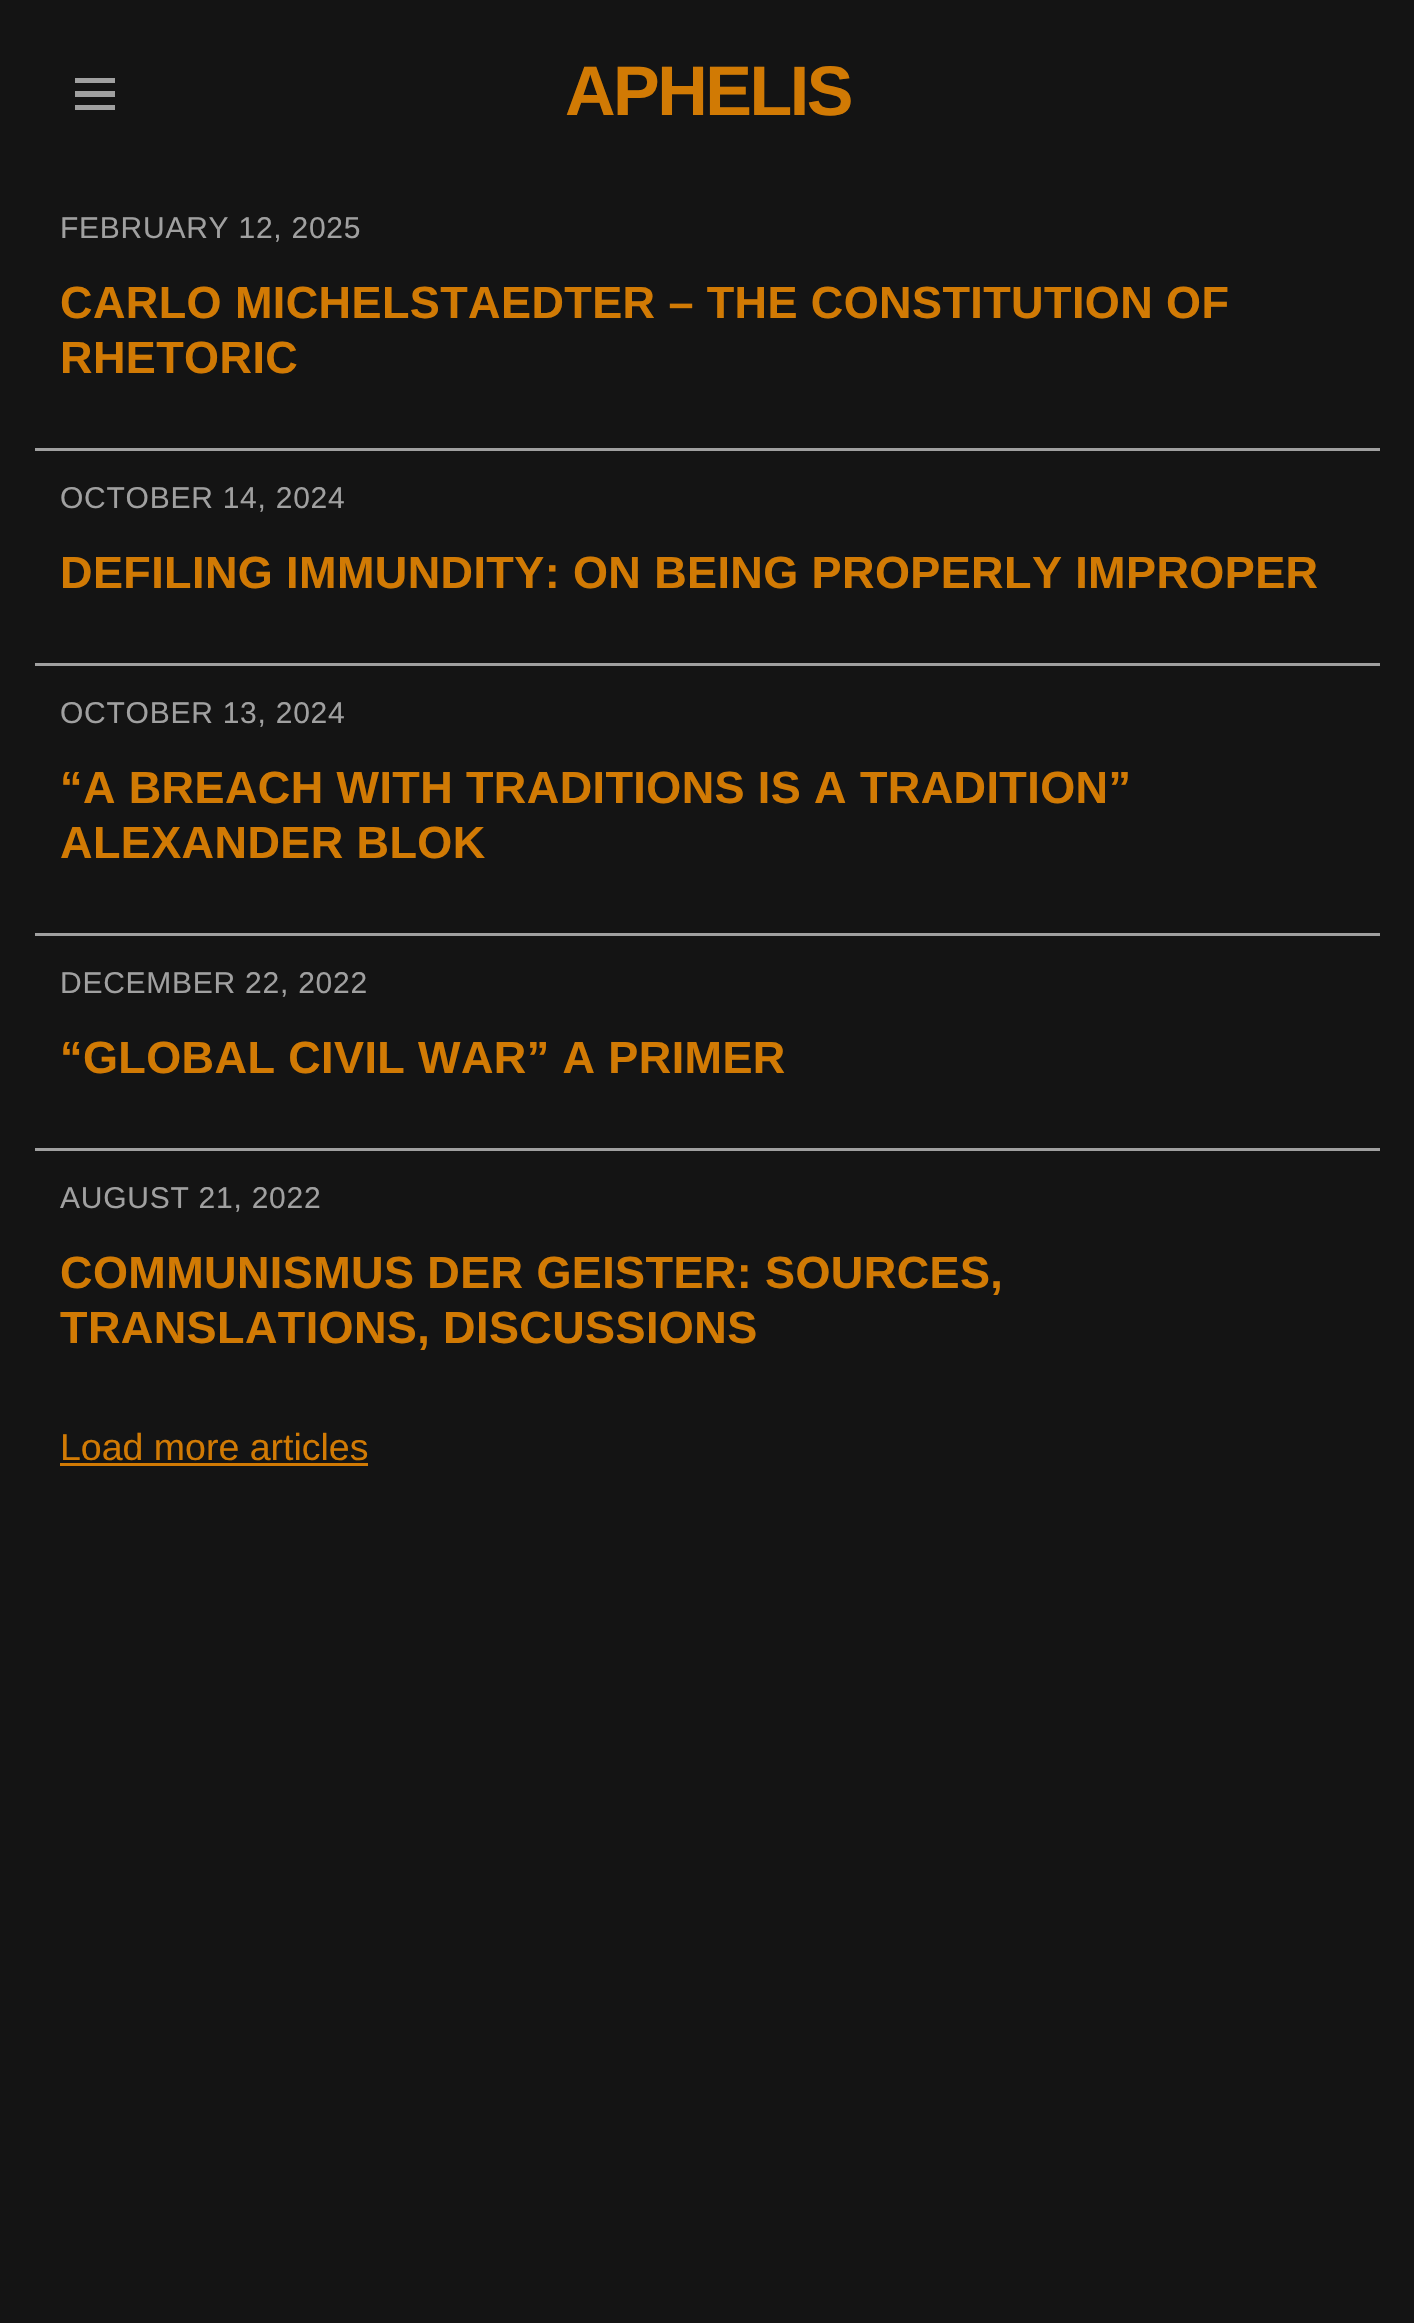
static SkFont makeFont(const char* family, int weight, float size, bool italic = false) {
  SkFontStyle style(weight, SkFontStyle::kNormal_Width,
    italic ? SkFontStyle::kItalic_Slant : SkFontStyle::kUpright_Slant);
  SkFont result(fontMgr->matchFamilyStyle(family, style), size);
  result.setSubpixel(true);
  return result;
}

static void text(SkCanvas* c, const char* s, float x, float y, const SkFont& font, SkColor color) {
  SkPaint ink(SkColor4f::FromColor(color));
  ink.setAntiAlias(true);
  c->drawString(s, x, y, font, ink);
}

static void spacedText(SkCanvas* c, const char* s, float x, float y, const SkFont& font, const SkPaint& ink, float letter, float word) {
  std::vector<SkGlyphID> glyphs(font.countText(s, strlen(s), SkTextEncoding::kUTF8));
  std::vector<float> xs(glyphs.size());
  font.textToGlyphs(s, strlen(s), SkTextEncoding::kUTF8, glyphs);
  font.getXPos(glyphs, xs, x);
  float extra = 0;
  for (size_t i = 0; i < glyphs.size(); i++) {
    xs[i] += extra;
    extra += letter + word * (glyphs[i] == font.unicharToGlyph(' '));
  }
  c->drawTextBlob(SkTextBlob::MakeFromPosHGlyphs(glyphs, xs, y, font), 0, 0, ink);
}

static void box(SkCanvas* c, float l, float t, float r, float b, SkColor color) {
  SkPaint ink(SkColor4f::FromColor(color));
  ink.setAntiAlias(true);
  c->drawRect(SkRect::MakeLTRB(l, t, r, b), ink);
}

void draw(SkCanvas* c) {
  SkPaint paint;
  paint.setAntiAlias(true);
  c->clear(0xff141414);
  box(c, 75, 78, 115, 83, 0xffa0a0a0);
  box(c, 75, 91, 115, 97, 0xffa0a0a0);
  box(c, 75, 105, 115, 110, 0xffa0a0a0);
  SkFont face1 = makeFont("Liberation Sans", 700, 70);
  paint.setColor(0xffd17a04);
  spacedText(c, "APHELIS", 565, 115, face1, paint, -2.5f, 0);
  box(c, 35, 448, 1380, 451, 0xffa0a0a0);
  SkFont face2 = makeFont("Liberation Sans", 400, 30);
  paint.setColor(0xffa0a0a0);
  spacedText(c, "FEBRUARY 12, 2025", 60, 238, face2, paint, 0.75f, 0);
  SkFont face3 = makeFont("Liberation Sans", 700, 45);
  paint.setColor(0xffd17a04);
  spacedText(c, "CARLO MICHELSTAEDTER – THE CONSTITUTION OF", 60, 318, face3, paint, 0.4f, 0);
  spacedText(c, "RHETORIC", 60, 373, face3, paint, 0.4f, 0);
  box(c, 35, 663, 1380, 666, 0xffa0a0a0);
  paint.setColor(0xffa0a0a0);
  spacedText(c, "OCTOBER 14, 2024", 60, 508, face2, paint, 0.75f, 0);
  paint.setColor(0xffd17a04);
  spacedText(c, "DEFILING IMMUNDITY: ON BEING PROPERLY IMPROPER", 60, 588, face3, paint, 0.4f, 0);
  box(c, 35, 933, 1380, 936, 0xffa0a0a0);
  paint.setColor(0xffa0a0a0);
  spacedText(c, "OCTOBER 13, 2024", 60, 723, face2, paint, 0.75f, 0);
  paint.setColor(0xffd17a04);
  spacedText(c, "“A BREACH WITH TRADITIONS IS A TRADITION”", 60, 803, face3, paint, 0.4f, 0);
  spacedText(c, "ALEXANDER BLOK", 60, 858, face3, paint, 0.4f, 0);
  box(c, 35, 1148, 1380, 1151, 0xffa0a0a0);
  paint.setColor(0xffa0a0a0);
  spacedText(c, "DECEMBER 22, 2022", 60, 993, face2, paint, 0.75f, 0);
  paint.setColor(0xffd17a04);
  spacedText(c, "“GLOBAL CIVIL WAR” A PRIMER", 60, 1073, face3, paint, 0.4f, 0);
  paint.setColor(0xffa0a0a0);
  spacedText(c, "AUGUST 21, 2022", 60, 1208, face2, paint, 0.75f, 0);
  paint.setColor(0xffd17a04);
  spacedText(c, "COMMUNISMUS DER GEISTER: SOURCES,", 60, 1288, face3, paint, 0.4f, 0);
  spacedText(c, "TRANSLATIONS, DISCUSSIONS", 60, 1343, face3, paint, 0.4f, 0);
  SkFont face4 = makeFont("Liberation Sans", 400, 37.5f);
  text(c, "Load more articles", 60, 1460, face4, 0xffd17a04);
  box(c, 60, 1463, 368, 1466, 0xffd17a04);
}
